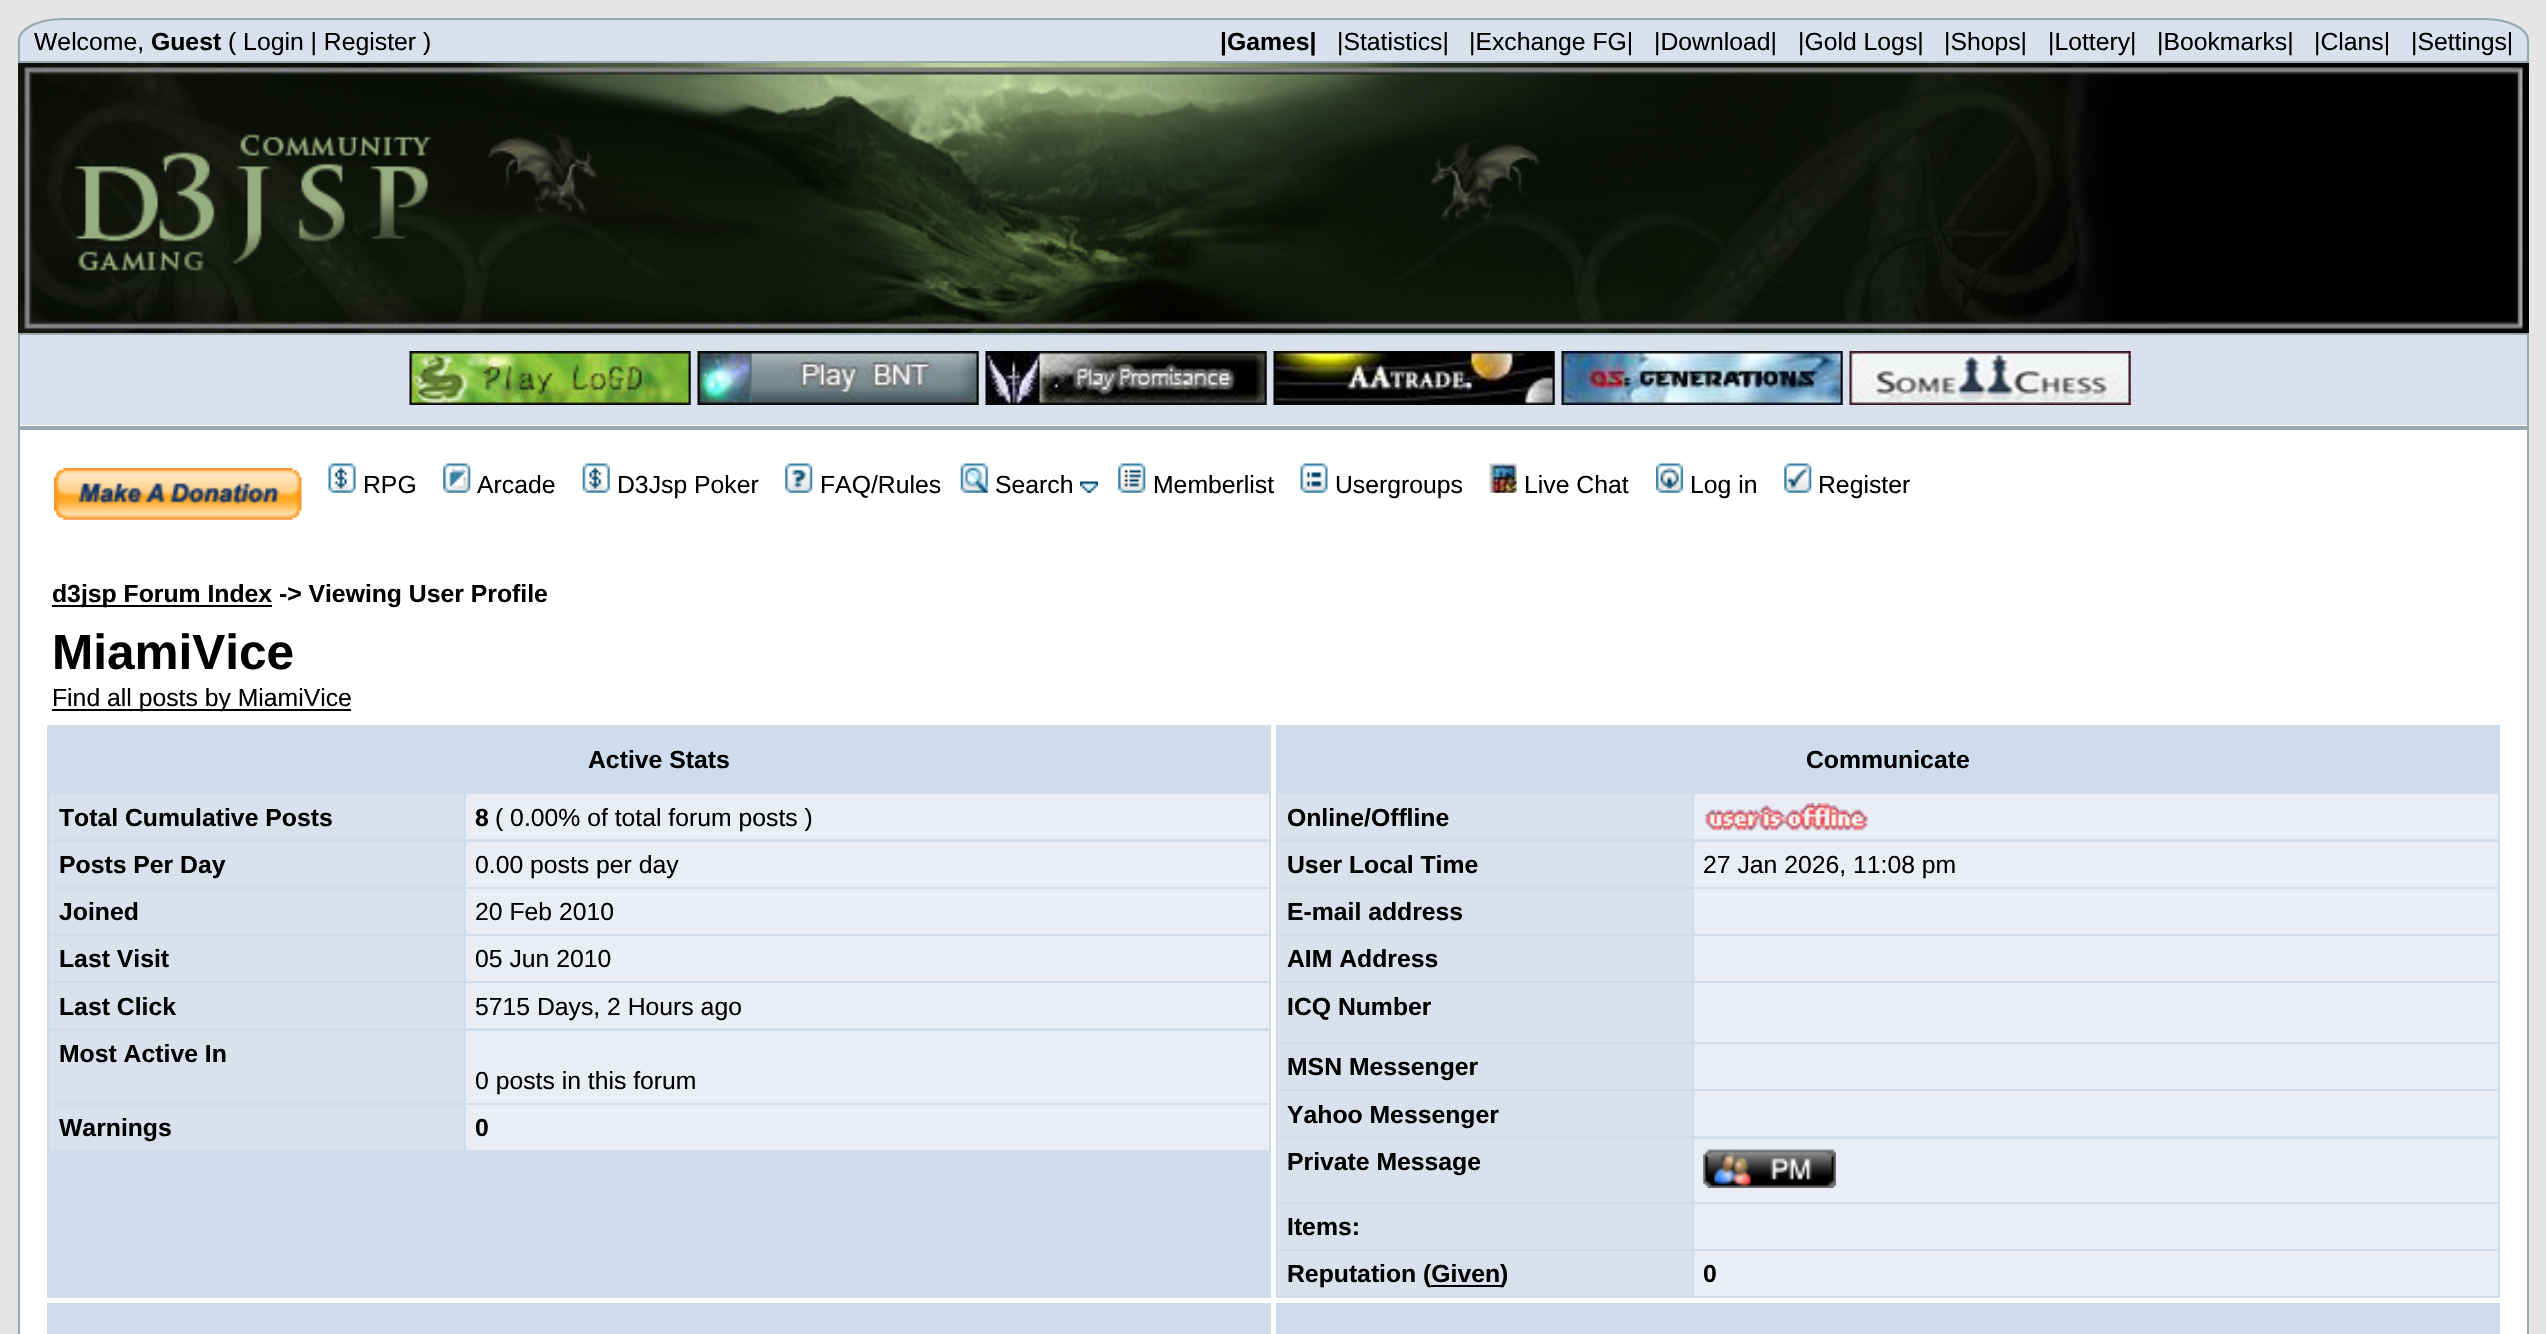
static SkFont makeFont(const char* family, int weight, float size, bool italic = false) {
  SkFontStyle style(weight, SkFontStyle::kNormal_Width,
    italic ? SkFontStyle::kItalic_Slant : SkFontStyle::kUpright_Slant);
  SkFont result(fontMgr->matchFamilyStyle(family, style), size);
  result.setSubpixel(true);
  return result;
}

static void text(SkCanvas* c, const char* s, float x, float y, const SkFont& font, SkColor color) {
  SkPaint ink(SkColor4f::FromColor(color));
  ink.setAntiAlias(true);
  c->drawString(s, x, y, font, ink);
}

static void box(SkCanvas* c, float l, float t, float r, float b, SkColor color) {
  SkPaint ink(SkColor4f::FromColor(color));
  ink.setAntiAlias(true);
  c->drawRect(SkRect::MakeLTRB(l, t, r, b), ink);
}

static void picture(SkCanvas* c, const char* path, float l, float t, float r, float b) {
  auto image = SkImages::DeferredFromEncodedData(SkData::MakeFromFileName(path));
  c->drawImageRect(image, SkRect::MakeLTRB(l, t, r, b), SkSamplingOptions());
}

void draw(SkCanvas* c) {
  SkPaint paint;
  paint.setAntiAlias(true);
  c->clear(0xffe5e5e5);
  paint.setColor(0xffd9e2ec);
  c->drawPath(SkPathBuilder().moveTo(63, 18).lineTo(2484, 18).cubicTo(2509, 18, 2529, 28, 2529, 40).lineTo(2529, 63).lineTo(18, 63).lineTo(18, 40).cubicTo(18, 28, 38, 18, 63, 18).close().detach(), paint);
  paint.setStyle(SkPaint::kStroke_Style);
  paint.setStrokeWidth(2.2f);
  paint.setColor(0xff98aab1);
  c->drawPath(SkPathBuilder().moveTo(63, 19).lineTo(2484, 19).cubicTo(2508, 19, 2528, 28.5f, 2528, 40.5f).lineTo(2528, 62).lineTo(19, 62).lineTo(19, 40.5f).cubicTo(19, 28.5f, 39, 19, 63, 19).close().detach(), paint);
  SkFont face1 = makeFont("Liberation Sans", 400, 24.75f);
  text(c, "Welcome,", 34, 50, face1, 0xff000000);
  SkFont face2 = makeFont("Liberation Sans", 700, 24.75f);
  text(c, "Guest", 151, 50, face2, 0xff000000);
  text(c, "( Login | Register )", 228, 50, face1, 0xff000000);
  text(c, "|Games|", 1220, 50, face2, 0xff000000);
  text(c, "|Statistics|", 1337, 50, face1, 0xff000000);
  text(c, "|Exchange FG|", 1469, 50, face1, 0xff000000);
  text(c, "|Download|", 1654, 50, face1, 0xff000000);
  text(c, "|Gold Logs|", 1798, 50, face1, 0xff000000);
  text(c, "|Shops|", 1944, 50, face1, 0xff000000);
  text(c, "|Lottery|", 2048, 50, face1, 0xff000000);
  text(c, "|Bookmarks|", 2157, 50, face1, 0xff000000);
  text(c, "|Clans|", 2314, 50, face1, 0xff000000);
  text(c, "|Settings|", 2411, 50, face1, 0xff000000);
  box(c, 2166, 63, 2518, 66, 0xff000000);
  picture(c, "img_01.png", 2166, 66, 2518, 333);
  picture(c, "img_02.png", 18, 63, 2167, 333);
  picture(c, "img_03.png", 2517, 63, 2529, 333);
  box(c, 20, 425, 2527, 426, 0xffffffff);
  paint.setStrokeWidth(2);
  c->drawRect(SkRect::MakeLTRB(19, 334, 2528, 427), paint);
  box(c, 20, 335, 2527, 425, 0xffd9e2ec);
  picture(c, "img_04.png", 409, 351, 691, 405);
  picture(c, "img_05.png", 697, 351, 979, 405);
  picture(c, "img_06.png", 985, 351, 1267, 405);
  picture(c, "img_07.png", 1273, 351, 1555, 405);
  picture(c, "img_08.png", 1561, 351, 1843, 405);
  picture(c, "img_09.png", 1849, 351, 2131, 405);
  paint.setStyle(SkPaint::kFill_Style);
  paint.setColor(0xffffffff);
  c->drawRect(SkRect::MakeLTRB(19, 429, 2528, 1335), paint);
  paint.setStyle(SkPaint::kStroke_Style);
  paint.setColor(0xff98aab1);
  c->drawRect(SkRect::MakeLTRB(19, 429, 2528, 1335), paint);
  picture(c, "img_10.png", 54, 468, 302, 520);
  picture(c, "img_11.png", 328, 463, 356, 493);
  text(c, "RPG", 363, 493, face1, 0xff000000);
  picture(c, "img_12.png", 443, 463, 471, 493);
  text(c, "Arcade", 477, 493, face1, 0xff000000);
  picture(c, "img_13.png", 582, 463, 610, 493);
  text(c, "D3Jsp Poker", 617, 493, face1, 0xff000000);
  picture(c, "img_14.png", 785, 463, 813, 493);
  text(c, "FAQ/Rules", 820, 493, face1, 0xff000000);
  picture(c, "img_15.png", 960, 463, 988, 493);
  text(c, "Search", 995, 493, face1, 0xff000000);
  picture(c, "img_16.png", 1080, 481, 1098, 493);
  picture(c, "img_17.png", 1118, 463, 1146, 493);
  text(c, "Memberlist", 1153, 493, face1, 0xff000000);
  picture(c, "img_18.png", 1300, 463, 1328, 493);
  text(c, "Usergroups", 1335, 493, face1, 0xff000000);
  picture(c, "img_19.png", 1489, 463, 1517, 493);
  text(c, "Live Chat", 1524, 493, face1, 0xff000000);
  picture(c, "img_20.png", 1656, 463, 1683, 493);
  text(c, "Log in", 1690, 493, face1, 0xff000000);
  picture(c, "img_21.png", 1784, 463, 1812, 493);
  text(c, "Register", 1818, 493, face1, 0xff000000);
  box(c, 52, 605, 272, 607, 0xff000000);
  text(c, "d3jsp Forum Index -> Viewing User Profile", 52, 602, face2, 0xff000000);
  SkFont face3 = makeFont("Liberation Sans", 700, 49.5f);
  text(c, "MiamiVice", 52, 669, face3, 0xff000000);
  box(c, 52, 709, 351, 711, 0xff000000);
  text(c, "Find all posts by MiamiVice", 52, 706, face1, 0xff000000);
  box(c, 47, 725, 1271, 1298, 0xffcedcec);
  text(c, "Active Stats", 588, 768, face2, 0xff000000);
  box(c, 50, 794, 464, 839, 0xffd9e2ec);
  text(c, "Total Cumulative Posts", 59, 826, face2, 0xff000000);
  box(c, 466, 794, 1269, 839, 0xffeaedf4);
  text(c, "8", 475, 826, face2, 0xff000000);
  text(c, "( 0.00% of total forum posts )", 495, 826, face1, 0xff000000);
  box(c, 50, 842, 464, 887, 0xffd9e2ec);
  text(c, "Posts Per Day", 59, 873, face2, 0xff000000);
  box(c, 466, 842, 1269, 887, 0xffeaedf4);
  text(c, "0.00 posts per day", 475, 873, face1, 0xff000000);
  box(c, 50, 889, 464, 934, 0xffd9e2ec);
  text(c, "Joined", 59, 920, face2, 0xff000000);
  box(c, 466, 889, 1269, 934, 0xffeaedf4);
  text(c, "20 Feb 2010", 475, 920, face1, 0xff000000);
  box(c, 50, 936, 464, 981, 0xffd9e2ec);
  text(c, "Last Visit", 59, 967, face2, 0xff000000);
  box(c, 466, 936, 1269, 981, 0xffeaedf4);
  text(c, "05 Jun 2010", 475, 967, face1, 0xff000000);
  box(c, 50, 983, 464, 1028, 0xffd9e2ec);
  text(c, "Last Click", 59, 1015, face2, 0xff000000);
  box(c, 466, 983, 1269, 1028, 0xffeaedf4);
  text(c, "5715 Days, 2 Hours ago", 475, 1015, face1, 0xff000000);
  box(c, 50, 1031, 464, 1103, 0xffd9e2ec);
  text(c, "Most Active In", 59, 1062, face2, 0xff000000);
  box(c, 466, 1031, 1269, 1103, 0xffeaedf4);
  text(c, "0 posts in this forum", 475, 1089, face1, 0xff000000);
  box(c, 50, 1105, 464, 1150, 0xffd9e2ec);
  text(c, "Warnings", 59, 1136, face2, 0xff000000);
  box(c, 466, 1105, 1269, 1150, 0xffeaedf4);
  text(c, "0", 475, 1136, face2, 0xff000000);
  box(c, 1276, 725, 2500, 1298, 0xffcedcec);
  text(c, "Communicate", 1806, 768, face2, 0xff000000);
  box(c, 1278, 794, 1692, 839, 0xffd9e2ec);
  text(c, "Online/Offline", 1287, 826, face2, 0xff000000);
  box(c, 1694, 794, 2498, 839, 0xffeaedf4);
  picture(c, "img_22.png", 1705, 803, 1869, 831);
  box(c, 1278, 842, 1692, 887, 0xffd9e2ec);
  text(c, "User Local Time", 1287, 873, face2, 0xff000000);
  box(c, 1694, 842, 2498, 887, 0xffeaedf4);
  text(c, "27 Jan 2026, 11:08 pm", 1703, 873, face1, 0xff000000);
  box(c, 1278, 889, 1692, 934, 0xffd9e2ec);
  text(c, "E-mail address", 1287, 920, face2, 0xff000000);
  box(c, 1694, 889, 2498, 934, 0xffeaedf4);
  box(c, 1278, 936, 1692, 981, 0xffd9e2ec);
  text(c, "AIM Address", 1287, 967, face2, 0xff000000);
  box(c, 1694, 936, 2498, 981, 0xffeaedf4);
  box(c, 1278, 983, 1692, 1042, 0xffd9e2ec);
  text(c, "ICQ Number", 1287, 1015, face2, 0xff000000);
  box(c, 1694, 983, 2498, 1042, 0xffeaedf4);
  box(c, 1278, 1044, 1692, 1089, 0xffd9e2ec);
  text(c, "MSN Messenger", 1287, 1075, face2, 0xff000000);
  box(c, 1694, 1044, 2498, 1089, 0xffeaedf4);
  box(c, 1278, 1091, 1692, 1136, 0xffd9e2ec);
  text(c, "Yahoo Messenger", 1287, 1123, face2, 0xff000000);
  box(c, 1694, 1091, 2498, 1136, 0xffeaedf4);
  box(c, 1278, 1139, 1692, 1202, 0xffd9e2ec);
  text(c, "Private Message", 1287, 1170, face2, 0xff000000);
  box(c, 1694, 1139, 2498, 1202, 0xffeaedf4);
  picture(c, "img_23.png", 1703, 1149, 1836, 1188);
  box(c, 1278, 1204, 1692, 1249, 0xffd9e2ec);
  text(c, "Items:", 1287, 1235, face2, 0xff000000);
  box(c, 1694, 1204, 2498, 1249, 0xffeaedf4);
  box(c, 1278, 1251, 1692, 1296, 0xffd9e2ec);
  text(c, "Reputation (Given", 1287, 1282, face2, 0xff000000);
  box(c, 1431, 1285, 1501, 1287, 0xff000000);
  text(c, ")", 1500, 1282, face2, 0xff000000);
  box(c, 1694, 1251, 2498, 1296, 0xffeaedf4);
  text(c, "0", 1703, 1282, face2, 0xff000000);
  box(c, 47, 1303, 1271, 1334, 0xffcedcec);
  box(c, 1276, 1303, 2500, 1334, 0xffcedcec);
}
